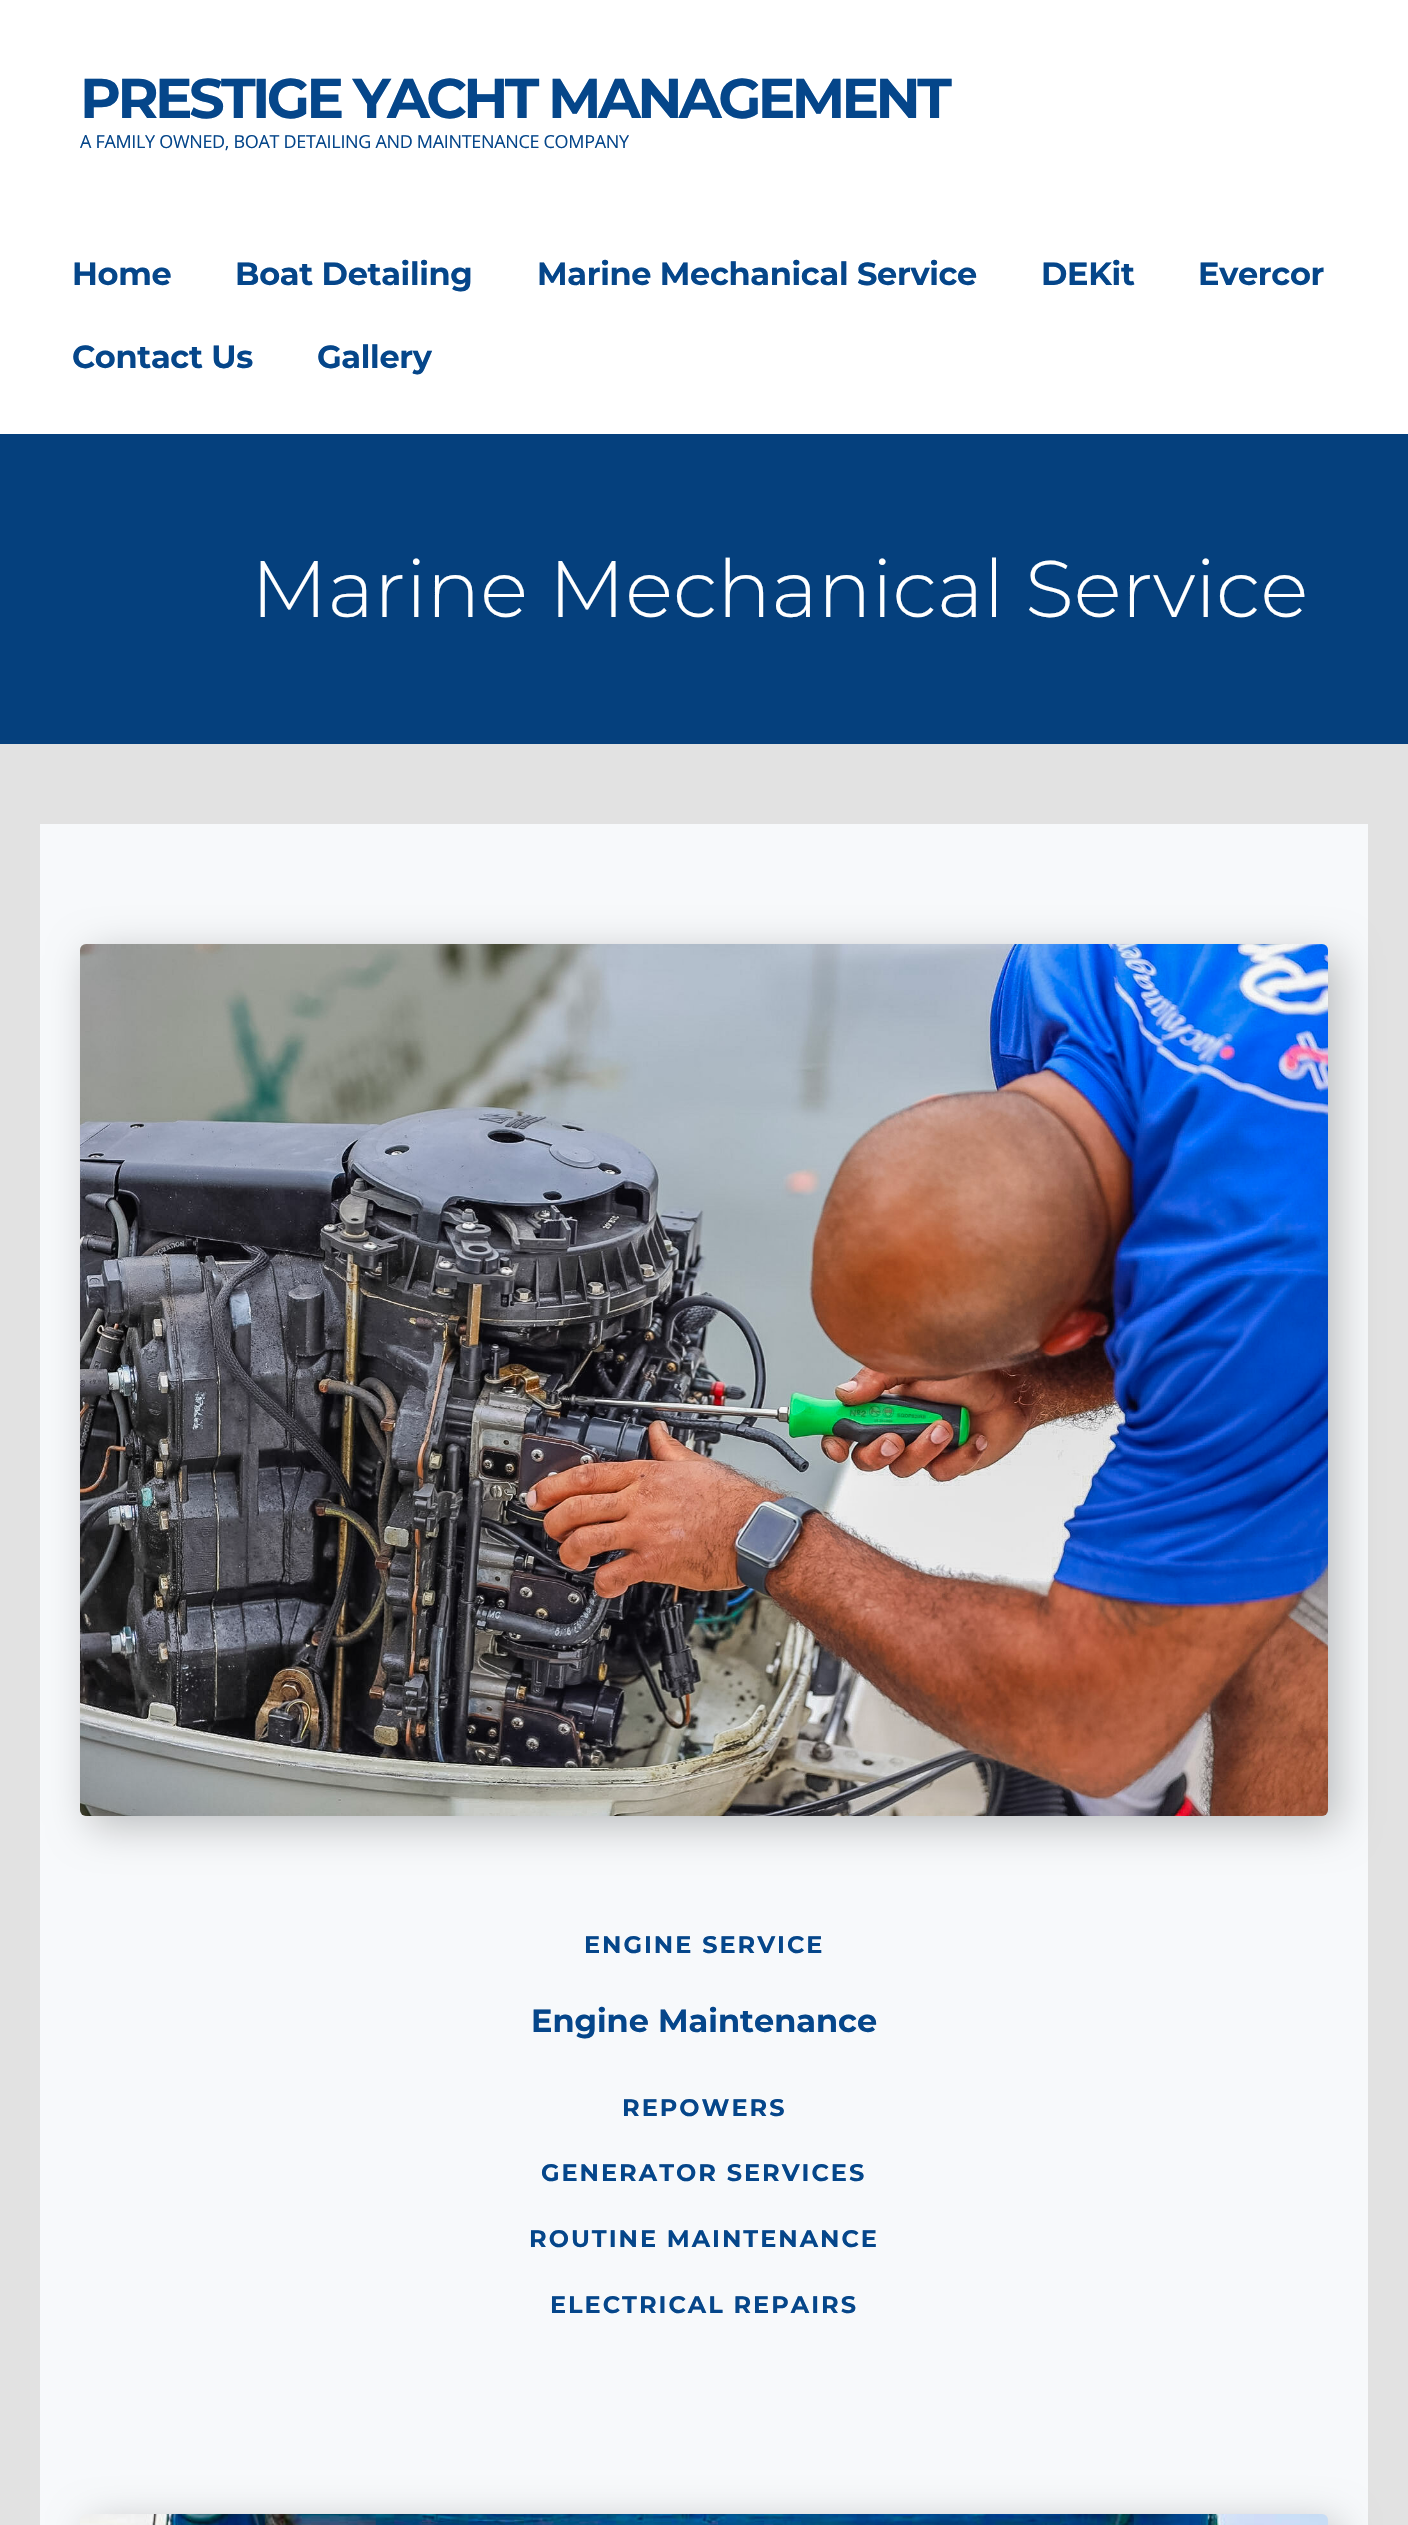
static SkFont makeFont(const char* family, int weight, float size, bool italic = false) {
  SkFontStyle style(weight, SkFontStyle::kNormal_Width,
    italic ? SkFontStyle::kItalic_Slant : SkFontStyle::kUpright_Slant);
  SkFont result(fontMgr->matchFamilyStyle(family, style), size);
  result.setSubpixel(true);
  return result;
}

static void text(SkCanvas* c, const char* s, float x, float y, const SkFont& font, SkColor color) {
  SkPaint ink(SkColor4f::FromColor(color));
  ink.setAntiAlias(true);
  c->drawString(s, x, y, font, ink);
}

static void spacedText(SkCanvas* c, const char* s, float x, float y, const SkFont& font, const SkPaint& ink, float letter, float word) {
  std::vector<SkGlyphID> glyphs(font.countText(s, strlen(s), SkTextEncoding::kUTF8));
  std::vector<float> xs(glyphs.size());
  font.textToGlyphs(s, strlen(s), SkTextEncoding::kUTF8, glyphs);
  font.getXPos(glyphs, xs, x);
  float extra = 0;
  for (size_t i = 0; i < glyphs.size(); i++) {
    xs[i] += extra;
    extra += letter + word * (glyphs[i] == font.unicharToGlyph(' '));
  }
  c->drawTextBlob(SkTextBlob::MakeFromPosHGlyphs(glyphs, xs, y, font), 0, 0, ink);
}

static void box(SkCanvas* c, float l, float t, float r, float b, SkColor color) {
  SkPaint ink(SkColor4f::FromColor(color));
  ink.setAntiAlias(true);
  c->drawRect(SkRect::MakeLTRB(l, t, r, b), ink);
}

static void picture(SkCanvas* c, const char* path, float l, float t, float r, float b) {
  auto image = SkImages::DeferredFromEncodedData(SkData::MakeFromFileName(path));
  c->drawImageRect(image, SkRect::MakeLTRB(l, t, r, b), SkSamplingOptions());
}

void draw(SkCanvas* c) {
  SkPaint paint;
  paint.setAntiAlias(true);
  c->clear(0xffe2e2e2);
  box(c, 0, 0, 1408, 434, 0xffffffff);
  SkFont face1 = makeFont("Montserrat", 700, 56);
  paint.setColor(0xff05468a);
  spacedText(c, "PRESTIGE YACHT MANAGEMENT", 80, 118, face1, paint, -3.6f, 0);
  SkFont face2 = makeFont("Open Sans", 400, 18);
  spacedText(c, "A FAMILY OWNED, BOAT DETAILING AND MAINTENANCE COMPANY", 80, 148, face2, paint, -0.32f, 0);
  SkFont face3 = makeFont("Montserrat", 700, 32);
  spacedText(c, "Home", 72, 285, face3, paint, -0.32f, 0);
  spacedText(c, "Boat Detailing", 235, 285, face3, paint, -0.32f, 0);
  spacedText(c, "Marine Mechanical Service", 537, 285, face3, paint, -0.32f, 0);
  spacedText(c, "DEKit", 1041, 285, face3, paint, -0.32f, 0);
  spacedText(c, "Evercor", 1198, 285, face3, paint, -0.32f, 0);
  spacedText(c, "Contact Us", 72, 368, face3, paint, -0.32f, 0);
  spacedText(c, "Gallery", 317, 368, face3, paint, -0.32f, 0);
  box(c, 0, 434, 1408, 744, 0xff05407d);
  SkFont face4 = makeFont("Montserrat", 300, 80);
  text(c, "Marine Mechanical Service", 251, 617, face4, 0xffffffff);
  box(c, 40, 824, 1368, 2525, 0xfff7f9fb);
  paint.setColor(0x40000000);
  paint.setMaskFilter(SkMaskFilter::MakeBlur(kNormal_SkBlurStyle, 20));
  c->drawRoundRect(SkRect::MakeLTRB(90, 954, 1338, 1826), 6, 6, paint);
  paint.setMaskFilter(nullptr);
  picture(c, "img_01.png", 80, 944, 1328, 1816);
  SkFont face5 = makeFont("Montserrat", 700, 24);
  paint.setColor(0xff05468a);
  spacedText(c, "ENGINE SERVICE", 584, 1953, face5, paint, 2, 0);
  text(c, "Engine Maintenance", 531, 2032, face3, 0xff05468a);
  spacedText(c, "REPOWERS", 622, 2116, face5, paint, 2, 0);
  spacedText(c, "GENERATOR SERVICES", 541, 2181, face5, paint, 2, 0);
  spacedText(c, "ROUTINE MAINTENANCE", 529, 2247, face5, paint, 2, 0);
  spacedText(c, "ELECTRICAL REPAIRS", 550, 2313, face5, paint, 2, 0);
  paint.setColor(0x40000000);
  paint.setMaskFilter(SkMaskFilter::MakeBlur(kNormal_SkBlurStyle, 20));
  c->drawRoundRect(SkRect::MakeLTRB(90, 2524, 1338, 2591), 6, 6, paint);
  paint.setMaskFilter(nullptr);
  picture(c, "img_02.png", 80, 2514, 1328, 2525);
}
